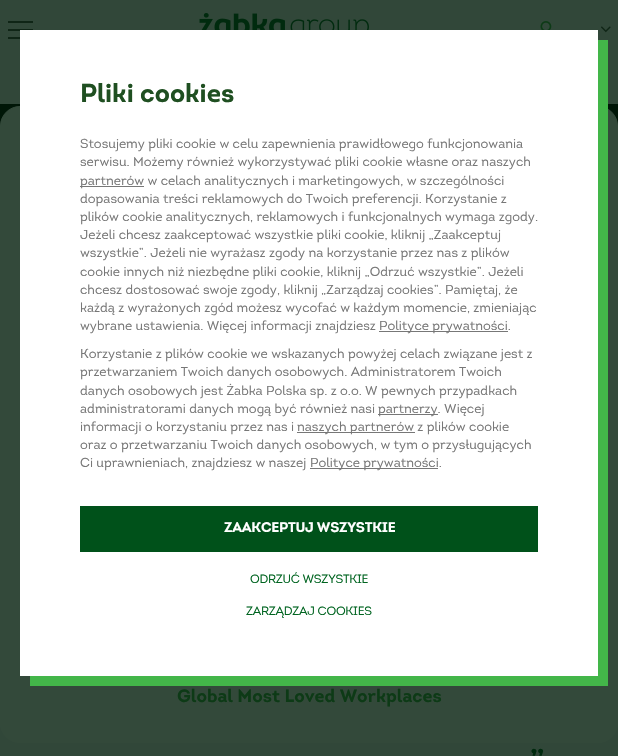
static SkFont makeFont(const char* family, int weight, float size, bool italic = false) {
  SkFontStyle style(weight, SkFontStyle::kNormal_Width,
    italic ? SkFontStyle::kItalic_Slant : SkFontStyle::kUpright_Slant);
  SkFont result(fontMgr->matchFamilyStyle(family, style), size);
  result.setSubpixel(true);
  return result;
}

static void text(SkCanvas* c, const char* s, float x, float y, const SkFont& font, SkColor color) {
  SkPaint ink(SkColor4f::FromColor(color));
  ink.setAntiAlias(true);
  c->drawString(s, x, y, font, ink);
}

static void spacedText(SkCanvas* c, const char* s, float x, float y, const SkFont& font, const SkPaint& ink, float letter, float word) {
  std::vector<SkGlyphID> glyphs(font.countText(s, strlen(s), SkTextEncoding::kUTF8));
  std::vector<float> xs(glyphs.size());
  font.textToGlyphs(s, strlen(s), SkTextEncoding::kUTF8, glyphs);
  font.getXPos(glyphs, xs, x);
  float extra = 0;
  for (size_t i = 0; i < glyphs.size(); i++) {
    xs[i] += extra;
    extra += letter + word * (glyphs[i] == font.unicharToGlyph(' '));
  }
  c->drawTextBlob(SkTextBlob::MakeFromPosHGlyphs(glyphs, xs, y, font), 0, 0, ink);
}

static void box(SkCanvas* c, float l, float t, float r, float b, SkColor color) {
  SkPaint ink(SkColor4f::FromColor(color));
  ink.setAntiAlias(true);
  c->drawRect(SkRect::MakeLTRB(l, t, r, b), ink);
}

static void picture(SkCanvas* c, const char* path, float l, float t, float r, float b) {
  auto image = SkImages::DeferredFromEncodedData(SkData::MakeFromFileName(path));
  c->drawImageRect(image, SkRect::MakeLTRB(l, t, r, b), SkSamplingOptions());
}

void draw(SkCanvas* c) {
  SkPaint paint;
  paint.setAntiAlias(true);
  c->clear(0xff314739);
  box(c, 8, 29, 33, 31, 0xff0f2516);
  box(c, 8, 21, 33, 23, 0xff0f2516);
  box(c, 8, 37, 20, 39, 0xff0f2516);
  picture(c, "img_01.png", 199, 13, 369, 30);
  picture(c, "img_02.png", 540, 21, 552, 30);
  picture(c, "img_03.png", 601, 26, 611, 33);
  picture(c, "img_04.png", 0, 104, 618, 126);
  paint.setColor(0xff33493a);
  c->drawRoundRect(SkRect::MakeLTRB(0.5f, 106.5f, 617.5f, 742.5f), 19.5f, 19.5f, paint);
  paint.setStyle(SkPaint::kStroke_Style);
  paint.setStrokeWidth(1);
  c->drawRoundRect(SkRect::MakeLTRB(0.5f, 106.5f, 617.5f, 742.5f), 19.5f, 19.5f, paint);
  paint.setStyle(SkPaint::kFill_Style);
  paint.setColor(0xff43b649);
  c->drawPath(SkPathBuilder().moveTo(30, 676).lineTo(30, 686).lineTo(608, 686).lineTo(608, 40).lineTo(598, 40).lineTo(598, 676).close().detach(), paint);
  box(c, 20, 30, 598, 676, 0xffffffff);
  SkFont face1 = makeFont("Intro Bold", 700, 26);
  text(c, "Pliki cookies", 80, 102, face1, 0xff1f4f21);
  SkFont face2 = makeFont("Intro", 400, 13);
  text(c, "Stosujemy pliki cookie w celu zapewnienia prawidłowego funkcjonowania", 80, 148, face2, 0xff777777);
  text(c, "serwisu. Możemy również wykorzystywać pliki cookie własne oraz naszych", 80, 166, face2, 0xff777777);
  box(c, 80, 186, 144, 187, 0xff777777);
  text(c, "partnerów w celach analitycznych i marketingowych, w szczególności", 80, 185, face2, 0xff777777);
  text(c, "dopasowania treści reklamowych do Twoich preferencji. Korzystanie z", 80, 203, face2, 0xff777777);
  text(c, "plików cookie analitycznych, reklamowych i funkcjonalnych wymaga zgody.", 80, 221, face2, 0xff777777);
  text(c, "Jeżeli chcesz zaakceptować wszystkie pliki cookie, kliknij „Zaakceptuj", 80, 239, face2, 0xff777777);
  text(c, "wszystkie”. Jeżeli nie wyrażasz zgody na korzystanie przez nas z plików", 80, 257, face2, 0xff777777);
  text(c, "cookie innych niż niezbędne pliki cookie, kliknij „Odrzuć wszystkie”. Jeżeli", 80, 276, face2, 0xff777777);
  text(c, "chcesz dostosować swoje zgody, kliknij „Zarządzaj cookies”. Pamiętaj, że", 80, 294, face2, 0xff777777);
  text(c, "każdą z wyrażonych zgód możesz wycofać w każdym momencie, zmieniając", 80, 312, face2, 0xff777777);
  text(c, "wybrane ustawienia. Więcej informacji znajdziesz", 80, 330, face2, 0xff777777);
  box(c, 379, 331, 508, 332, 0xff777777);
  text(c, "Polityce prywatności.", 379, 330, face2, 0xff777777);
  text(c, "Korzystanie z plików cookie we wskazanych powyżej celach związane jest z", 80, 358, face2, 0xff777777);
  text(c, "przetwarzaniem Twoich danych osobowych. Administratorem Twoich", 80, 376, face2, 0xff777777);
  text(c, "danych osobowych jest Żabka Polska sp. z o.o. W pewnych przypadkach", 80, 395, face2, 0xff777777);
  text(c, "administratorami danych mogą być również nasi", 80, 413, face2, 0xff777777);
  box(c, 378, 414, 438, 415, 0xff777777);
  text(c, "partnerzy. Więcej", 378, 413, face2, 0xff777777);
  text(c, "informacji o korzystaniu przez nas i", 80, 431, face2, 0xff777777);
  box(c, 297, 432, 415, 433, 0xff777777);
  text(c, "naszych partnerów z plików cookie", 297, 431, face2, 0xff777777);
  text(c, "oraz o przetwarzaniu Twoich danych osobowych, w tym o przysługujących", 80, 449, face2, 0xff777777);
  text(c, "Ci uprawnieniach, znajdziesz w naszej", 80, 467, face2, 0xff777777);
  box(c, 310, 468, 438, 469, 0xff777777);
  text(c, "Polityce prywatności.", 310, 467, face2, 0xff777777);
  box(c, 80, 506, 538, 552, 0xff00511a);
  SkFont face3 = makeFont("Intro Bold", 700, 14);
  paint.setColor(0xffffffff);
  spacedText(c, "ZAAKCEPTUJ WSZYSTKIE", 224, 532, face3, paint, -0.25f, 0);
  SkFont face4 = makeFont("Intro", 400, 12);
  paint.setColor(0xff006420);
  spacedText(c, "ODRZUĆ WSZYSTKIE", 250, 583, face4, paint, -0.25f, 0);
  spacedText(c, "ZARZĄDZAJ COOKIES", 246, 615, face4, paint, -0.25f, 0);
  SkFont face5 = makeFont("Intro Bold", 700, 18);
  text(c, "Global Most Loved Workplaces", 177, 702, face5, 0xff0d3a16);
  SkFont face6 = makeFont("Intro Bold", 700, 30);
  text(c, "”", 530, 770, face6, 0xff002a0e);
}
